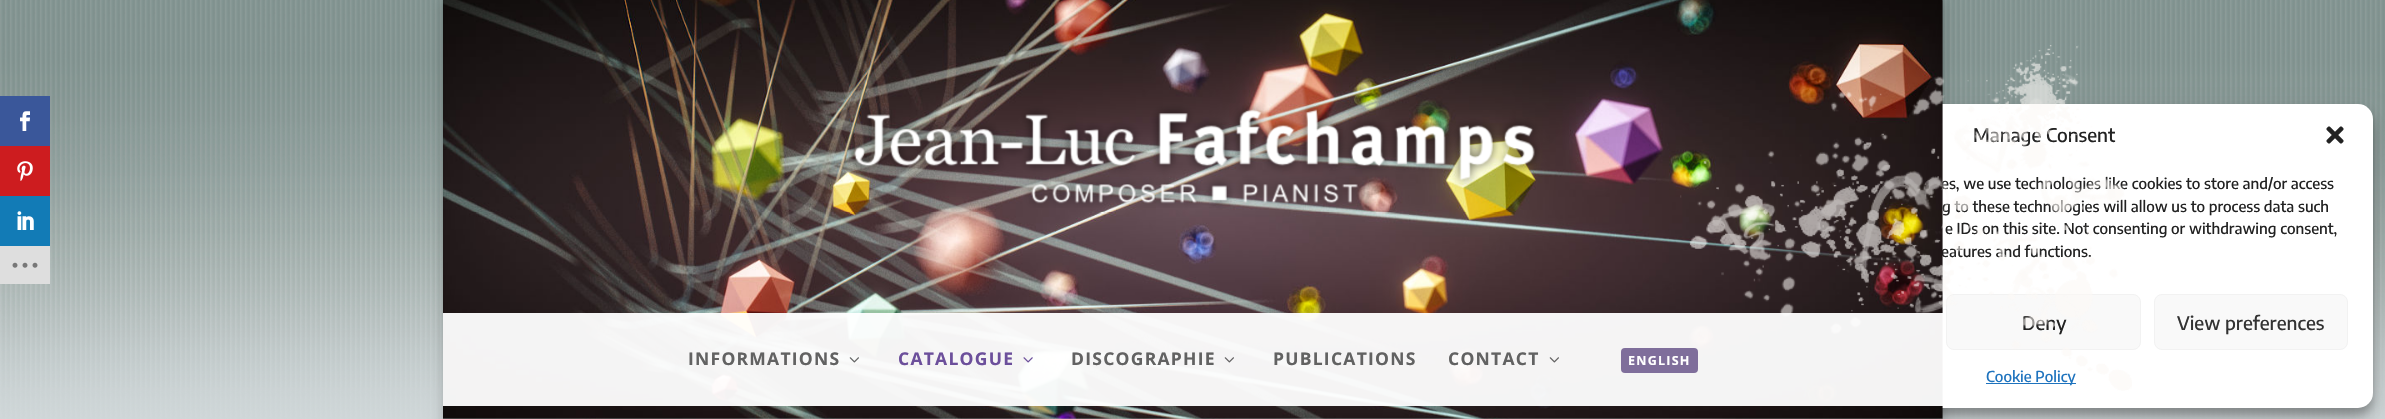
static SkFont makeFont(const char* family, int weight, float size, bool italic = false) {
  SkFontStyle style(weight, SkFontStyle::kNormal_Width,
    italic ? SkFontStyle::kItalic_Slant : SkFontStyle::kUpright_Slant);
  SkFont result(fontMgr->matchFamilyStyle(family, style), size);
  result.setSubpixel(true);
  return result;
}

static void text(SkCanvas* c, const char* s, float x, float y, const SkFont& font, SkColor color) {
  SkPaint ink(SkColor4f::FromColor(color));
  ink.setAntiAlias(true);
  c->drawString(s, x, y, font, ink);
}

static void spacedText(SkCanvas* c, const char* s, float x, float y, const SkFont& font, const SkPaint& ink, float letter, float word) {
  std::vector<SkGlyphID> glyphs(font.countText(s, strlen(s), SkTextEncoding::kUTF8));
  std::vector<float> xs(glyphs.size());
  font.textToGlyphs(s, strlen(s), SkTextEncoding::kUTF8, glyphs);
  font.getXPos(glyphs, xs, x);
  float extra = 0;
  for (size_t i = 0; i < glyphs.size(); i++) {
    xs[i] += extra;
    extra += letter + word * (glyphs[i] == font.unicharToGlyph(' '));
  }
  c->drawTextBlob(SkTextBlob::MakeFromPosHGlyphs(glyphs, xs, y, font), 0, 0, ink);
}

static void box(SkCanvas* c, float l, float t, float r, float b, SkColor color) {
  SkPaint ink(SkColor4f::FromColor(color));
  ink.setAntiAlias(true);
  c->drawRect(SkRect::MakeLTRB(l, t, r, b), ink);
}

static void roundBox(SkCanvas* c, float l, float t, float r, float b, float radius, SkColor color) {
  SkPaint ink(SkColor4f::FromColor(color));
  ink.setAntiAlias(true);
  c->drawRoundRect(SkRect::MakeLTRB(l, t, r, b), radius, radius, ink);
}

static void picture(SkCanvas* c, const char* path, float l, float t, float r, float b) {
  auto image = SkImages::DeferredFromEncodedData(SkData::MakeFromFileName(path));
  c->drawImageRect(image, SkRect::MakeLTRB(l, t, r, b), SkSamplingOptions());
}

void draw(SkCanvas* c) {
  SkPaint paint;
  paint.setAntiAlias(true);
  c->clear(0xffd4dbdd);
  picture(c, "img_01.png", 0, 0, 2385, 419);
  box(c, 0, 96, 50, 146, 0xff3a579a);
  picture(c, "img_02.png", 20, 111, 30, 131);
  box(c, 0, 146, 50, 196, 0xffcd1c1f);
  picture(c, "img_03.png", 17, 161, 33, 181);
  box(c, 0, 196, 50, 246, 0xff127bb6);
  picture(c, "img_04.png", 17, 211, 34, 230);
  box(c, 0, 246, 50, 284, 0xffdedede);
  picture(c, "img_05.png", 12, 262, 38, 268);
  paint.setColor(0x33000000);
  paint.setMaskFilter(SkMaskFilter::MakeBlur(kNormal_SkBlurStyle, 6));
  c->drawRect(SkRect::MakeLTRB(443, 0, 1943, 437), paint);
  paint.setMaskFilter(nullptr);
  paint.setColor(0x3b000000);
  paint.setMaskFilter(SkMaskFilter::MakeBlur(kNormal_SkBlurStyle, 4));
  c->drawRoundRect(SkRect::MakeLTRB(1715, 111, 2373, 415), 15, 15, paint);
  paint.setMaskFilter(nullptr);
  paint.setColor(0x30000000);
  paint.setMaskFilter(SkMaskFilter::MakeBlur(kNormal_SkBlurStyle, 12.5f));
  c->drawRoundRect(SkRect::MakeLTRB(1715, 116, 2373, 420), 15, 15, paint);
  paint.setMaskFilter(nullptr);
  roundBox(c, 1715, 104, 2373, 408, 15, 0xffffffff);
  paint.setColor(0x1a000000);
  c->drawPath(SkPathBuilder().moveTo(443, 419).lineTo(443, 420).lineTo(1943, 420).lineTo(1943, 1).lineTo(1942, 1).lineTo(1942, 419).close().detach(), paint);
  SkFont face1 = makeFont("Encode Sans", 500, 15);
  text(c, "es, we use technologies like cookies to store and/or access", 1941, 189, face1, 0xff222222);
  text(c, "g to these technologies will allow us to process data such", 1942, 212, face1, 0xff222222);
  text(c, "eatures and functions.", 1941, 257, face1, 0xff222222);
  picture(c, "img_06.png", 443, 0, 1943, 419);
  picture(c, "img_07.png", 847, 102, 1540, 208);
  SkFont face2 = makeFont("Encode Sans", 500, 18.75f);
  text(c, "Manage Consent", 1973, 142, face2, 0xff222222);
  text(c, "e IDs on this site. Not consenting or withdrawing consent,", 1945, 234, face1, 0xff222222);
  paint.setColor(0xfff9f9f9);
  c->drawRoundRect(SkRect::MakeLTRB(1946.5f, 294.5f, 2140.5f, 349.5f), 7.5f, 7.5f, paint);
  paint.setStyle(SkPaint::kStroke_Style);
  paint.setStrokeWidth(1);
  paint.setColor(0xfff2f2f2);
  c->drawRoundRect(SkRect::MakeLTRB(1946.5f, 294.5f, 2140.5f, 349.5f), 7.5f, 7.5f, paint);
  text(c, "Deny", 2022, 330, face2, 0xff222222);
  box(c, 1986, 383, 2076, 384, 0xff1e73be);
  text(c, "Cookie Policy", 1986, 382, face1, 0xff1e73be);
  picture(c, "img_08.png", 1680, 45, 2132, 391);
  box(c, 443, 313, 1943, 406, 0xf2ffffff);
  SkFont face3 = makeFont("Open Sans", 700, 17.5f);
  paint.setStyle(SkPaint::kFill_Style);
  paint.setColor(0xff626262);
  spacedText(c, "INFORMATIONS", 688, 365, face3, paint, 1.25f, 0);
  picture(c, "img_09.png", 849, 357, 859, 363);
  paint.setColor(0xff6c4f9b);
  spacedText(c, "CATALOGUE", 898, 365, face3, paint, 1.25f, 0);
  picture(c, "img_10.png", 1023, 357, 1033, 363);
  paint.setColor(0xff626262);
  spacedText(c, "DISCOGRAPHIE", 1071, 365, face3, paint, 1.25f, 0);
  picture(c, "img_11.png", 1224, 357, 1234, 363);
  spacedText(c, "PUBLICATIONS", 1273, 365, face3, paint, 1.25f, 0);
  spacedText(c, "CONTACT", 1448, 365, face3, paint, 1.25f, 0);
  picture(c, "img_12.png", 1549, 357, 1559, 363);
  roundBox(c, 1621, 348, 1698, 373, 4, 0xff7f6e9b);
  SkFont face4 = makeFont("Open Sans", 700, 12.5f);
  paint.setColor(0xffffffff);
  spacedText(c, "ENGLISH", 1628, 365, face4, paint, 1.25f, 0);
  picture(c, "img_13.png", 2326, 126, 2344, 144);
  paint.setColor(0xfff9f9f9);
  c->drawRoundRect(SkRect::MakeLTRB(2154.5f, 294.5f, 2347.5f, 349.5f), 7.5f, 7.5f, paint);
  paint.setStyle(SkPaint::kStroke_Style);
  paint.setColor(0xfff2f2f2);
  c->drawRoundRect(SkRect::MakeLTRB(2154.5f, 294.5f, 2347.5f, 349.5f), 7.5f, 7.5f, paint);
  text(c, "View preferences", 2177, 330, face2, 0xff333333);
}
